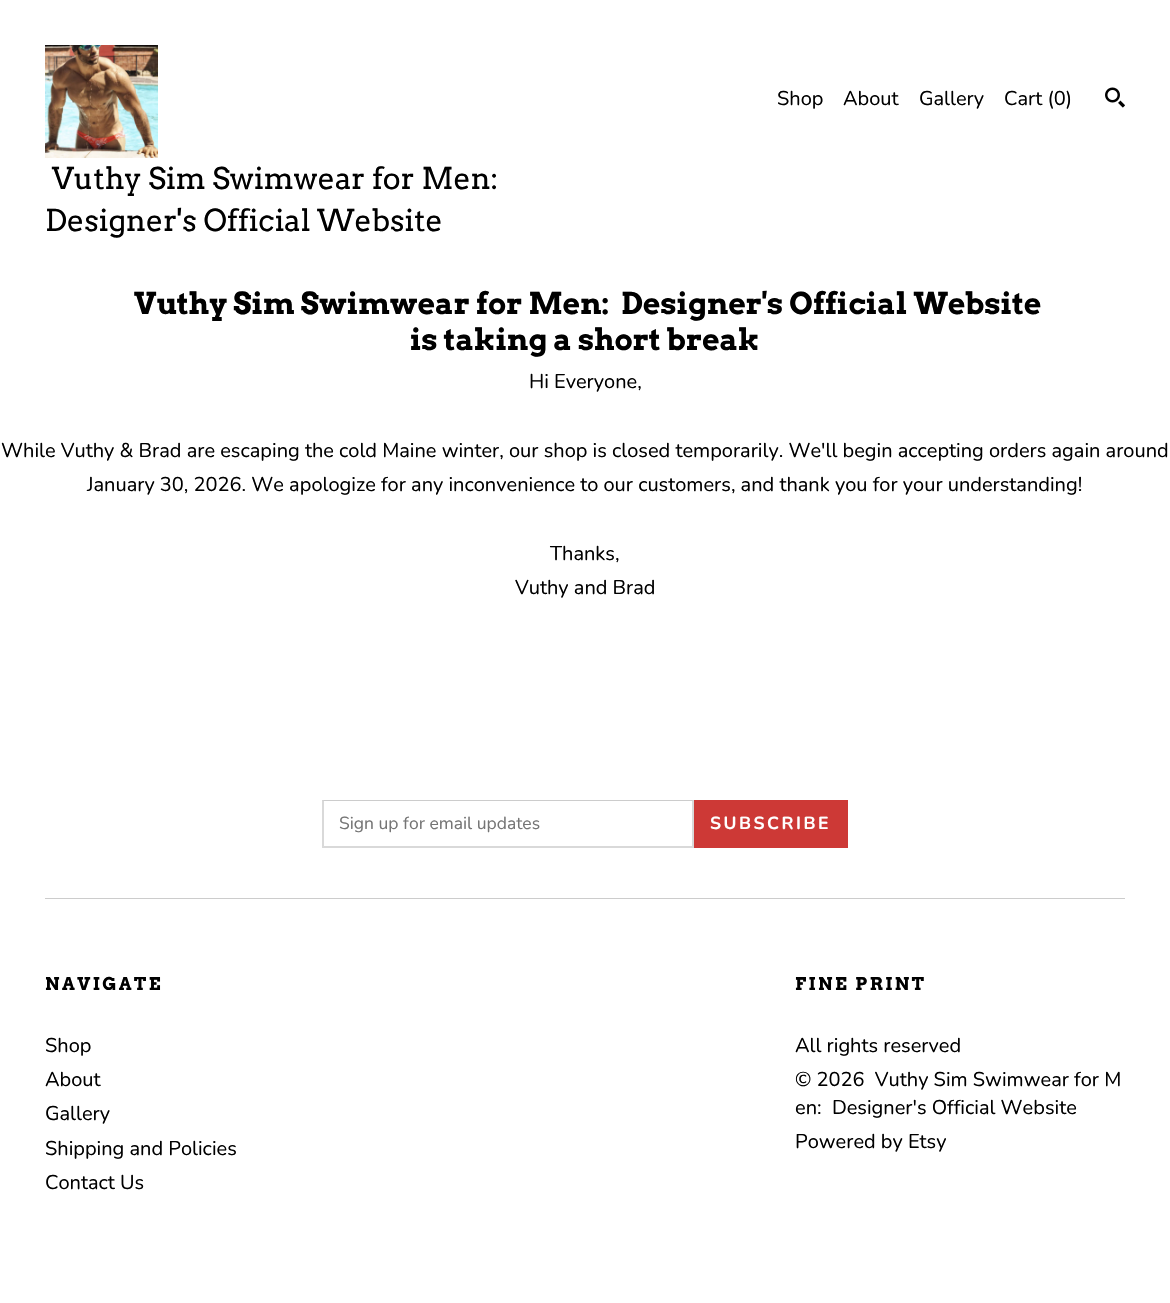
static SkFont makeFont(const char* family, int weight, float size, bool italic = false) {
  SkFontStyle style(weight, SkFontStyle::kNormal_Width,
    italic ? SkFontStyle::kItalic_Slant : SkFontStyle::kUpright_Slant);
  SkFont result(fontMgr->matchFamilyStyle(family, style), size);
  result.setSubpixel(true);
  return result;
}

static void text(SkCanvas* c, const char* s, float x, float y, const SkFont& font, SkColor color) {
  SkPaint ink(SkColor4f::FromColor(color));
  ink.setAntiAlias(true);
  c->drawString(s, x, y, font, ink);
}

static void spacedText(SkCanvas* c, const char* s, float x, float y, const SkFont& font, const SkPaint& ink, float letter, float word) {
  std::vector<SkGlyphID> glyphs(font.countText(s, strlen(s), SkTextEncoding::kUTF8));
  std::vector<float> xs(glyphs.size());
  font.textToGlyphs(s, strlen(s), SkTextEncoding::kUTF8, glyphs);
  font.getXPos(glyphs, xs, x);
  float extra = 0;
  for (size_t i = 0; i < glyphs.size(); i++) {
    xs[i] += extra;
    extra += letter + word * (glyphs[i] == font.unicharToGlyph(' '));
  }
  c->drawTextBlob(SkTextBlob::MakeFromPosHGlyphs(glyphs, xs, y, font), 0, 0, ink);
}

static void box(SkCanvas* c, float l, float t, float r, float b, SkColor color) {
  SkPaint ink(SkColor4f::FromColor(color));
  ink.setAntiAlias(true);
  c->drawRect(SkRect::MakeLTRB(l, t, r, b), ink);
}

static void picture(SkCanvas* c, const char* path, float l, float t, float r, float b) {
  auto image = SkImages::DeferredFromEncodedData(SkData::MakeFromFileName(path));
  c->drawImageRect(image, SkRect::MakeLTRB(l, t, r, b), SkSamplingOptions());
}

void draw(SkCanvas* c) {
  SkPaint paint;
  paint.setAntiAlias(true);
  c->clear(0xffffffff);
  SkFont face1 = makeFont("Nunito", 400, 20);
  text(c, "Shop", 777, 105, face1, 0xff000000);
  text(c, "About", 843, 105, face1, 0xff000000);
  text(c, "Gallery", 919, 105, face1, 0xff000000);
  text(c, "Cart (0)", 1004, 105, face1, 0xff000000);
  picture(c, "img_01.png", 1105, 87, 1125, 108);
  picture(c, "img_02.png", 45, 45, 158, 158);
  SkFont face2 = makeFont("Arvo", 400, 30);
  text(c, "Vuthy Sim Swimwear for Men:", 52, 189, face2, 0xff000000);
  text(c, "Designer's Official Website", 45, 231, face2, 0xff000000);
  SkFont face3 = makeFont("Arvo", 700, 30);
  text(c, "Vuthy Sim Swimwear for Men:  Designer's Official Website", 134, 314, face3, 0xff000000);
  text(c, "is taking a short break", 410, 350, face3, 0xff000000);
  text(c, "Hi Everyone,", 529, 388, face1, 0xff000000);
  text(c, "While Vuthy & Brad are escaping the cold Maine winter, our shop is closed temporarily. We'll begin accepting orders again around", 1, 457, face1, 0xff000000);
  text(c, "January 30, 2026. We apologize for any inconvenience to our customers, and thank you for your understanding!", 87, 491, face1, 0xff000000);
  text(c, "Thanks,", 550, 560, face1, 0xff000000);
  text(c, "Vuthy and Brad", 515, 594, face1, 0xff000000);
  paint.setColor(0xffcccccc);
  c->drawPath(SkPathBuilder().moveTo(322, 800).lineTo(694, 800).lineTo(692, 801).lineTo(324, 801).close().detach(), paint);
  paint.setColor(0x26000000);
  c->drawPath(SkPathBuilder().moveTo(694, 800).lineTo(694, 848).lineTo(692, 846).lineTo(692, 801).close().detach(), paint);
  c->drawPath(SkPathBuilder().moveTo(694, 848).lineTo(322, 848).lineTo(324, 846).lineTo(692, 846).close().detach(), paint);
  c->drawPath(SkPathBuilder().moveTo(322, 848).lineTo(322, 800).lineTo(324, 801).lineTo(324, 846).close().detach(), paint);
  SkFont face4 = makeFont("Nunito", 400, 17.5f);
  text(c, "Sign up for email updates", 339, 829, face4, 0xff757575);
  box(c, 694, 800, 848, 848, 0xffcd3936);
  SkFont face5 = makeFont("Nunito", 700, 17.5f);
  paint.setColor(0xffffffff);
  spacedText(c, "SUBSCRIBE", 710, 829, face5, paint, 2.5f, 0);
  box(c, 45, 898, 1125, 899, 0xffcccccc);
  SkFont face6 = makeFont("Arvo", 700, 17.5f);
  paint.setColor(0xff000000);
  spacedText(c, "NAVIGATE", 45, 990, face6, paint, 2.5f, 0);
  text(c, "Shop", 45, 1052, face1, 0xff000000);
  text(c, "About", 45, 1086, face1, 0xff000000);
  text(c, "Gallery", 45, 1120, face1, 0xff000000);
  text(c, "Shipping and Policies", 45, 1155, face1, 0xff000000);
  text(c, "Contact Us", 45, 1189, face1, 0xff000000);
  spacedText(c, "FINE PRINT", 795, 990, face6, paint, 2.5f, 0);
  text(c, "All rights reserved", 795, 1052, face1, 0xff000000);
  text(c, "© 2026  Vuthy Sim Swimwear for M", 795, 1086, face1, 0xff000000);
  text(c, "en:  Designer's Official Website", 795, 1114, face1, 0xff000000);
  text(c, "Powered by Etsy", 795, 1148, face1, 0xff000000);
}
